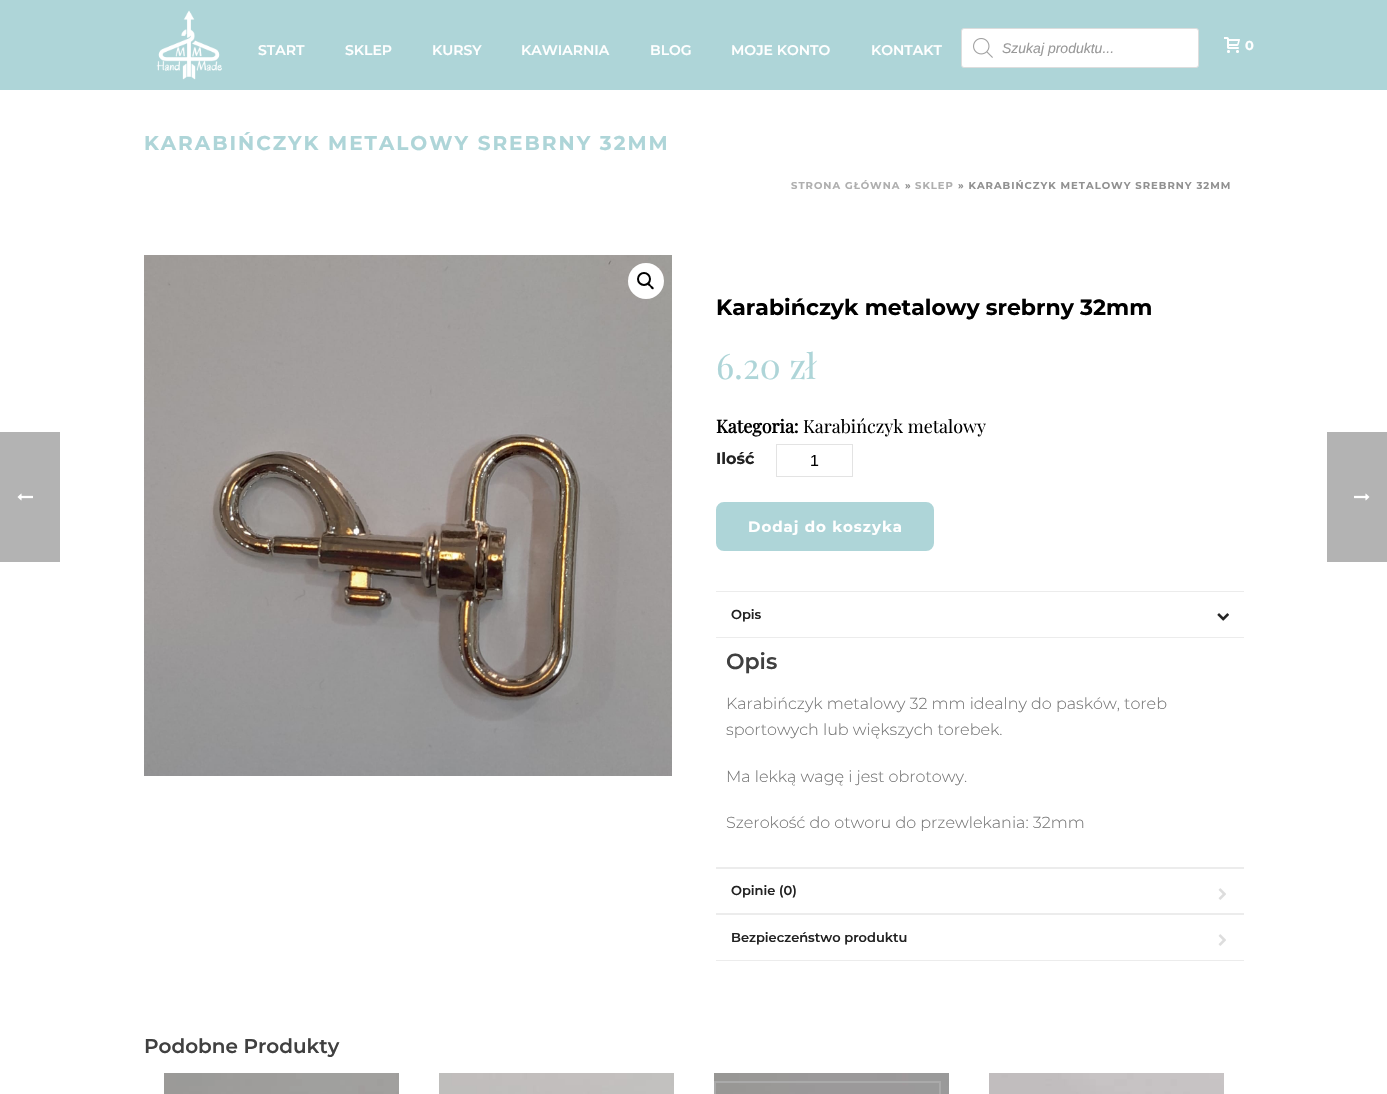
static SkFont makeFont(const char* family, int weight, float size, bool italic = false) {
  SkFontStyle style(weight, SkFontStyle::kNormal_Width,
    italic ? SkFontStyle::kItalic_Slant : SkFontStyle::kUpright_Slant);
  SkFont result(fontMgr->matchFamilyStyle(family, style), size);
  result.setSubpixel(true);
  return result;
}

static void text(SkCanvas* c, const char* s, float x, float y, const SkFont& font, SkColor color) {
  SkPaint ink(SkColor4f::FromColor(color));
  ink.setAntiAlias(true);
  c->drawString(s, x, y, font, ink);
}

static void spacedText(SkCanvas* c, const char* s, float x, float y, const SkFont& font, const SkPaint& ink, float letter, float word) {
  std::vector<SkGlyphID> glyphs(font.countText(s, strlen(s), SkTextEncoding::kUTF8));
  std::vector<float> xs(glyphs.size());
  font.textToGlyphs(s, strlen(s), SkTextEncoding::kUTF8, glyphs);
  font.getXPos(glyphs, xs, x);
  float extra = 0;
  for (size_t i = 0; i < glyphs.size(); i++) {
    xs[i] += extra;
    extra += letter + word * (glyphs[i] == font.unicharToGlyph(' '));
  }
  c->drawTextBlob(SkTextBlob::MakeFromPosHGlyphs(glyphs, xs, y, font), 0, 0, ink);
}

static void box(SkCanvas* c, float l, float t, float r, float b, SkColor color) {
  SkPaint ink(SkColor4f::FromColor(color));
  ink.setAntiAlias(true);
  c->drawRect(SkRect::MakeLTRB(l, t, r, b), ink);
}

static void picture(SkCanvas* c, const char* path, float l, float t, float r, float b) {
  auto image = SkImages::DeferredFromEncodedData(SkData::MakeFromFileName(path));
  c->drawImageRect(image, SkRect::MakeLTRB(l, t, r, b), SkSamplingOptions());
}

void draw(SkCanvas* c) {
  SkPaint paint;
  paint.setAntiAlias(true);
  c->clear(0xffffffff);
  box(c, 0, 432, 60, 562, 0xffb3b3b3);
  picture(c, "img_01.png", 17, 493, 33, 501);
  box(c, 0, 0, 1387, 90, 0xffaed5d8);
  picture(c, "img_02.png", 156, 10, 222, 80);
  SkFont face1 = makeFont("Montserrat", 600, 14);
  text(c, "START", 258, 55, face1, 0xffffffff);
  text(c, "SKLEP", 345, 55, face1, 0xffffffff);
  text(c, "KURSY", 432, 55, face1, 0xffffffff);
  text(c, "KAWIARNIA", 521, 55, face1, 0xffffffff);
  text(c, "BLOG", 650, 55, face1, 0xffffffff);
  text(c, "MOJE KONTO", 731, 55, face1, 0xffffffff);
  text(c, "KONTAKT", 871, 55, face1, 0xffffffff);
  paint.setColor(0xffffffff);
  c->drawRoundRect(SkRect::MakeLTRB(961.5f, 28.5f, 1198.5f, 67.5f), 2.5f, 2.5f, paint);
  paint.setStyle(SkPaint::kStroke_Style);
  paint.setStrokeWidth(1);
  paint.setColor(0xffdddddd);
  c->drawRoundRect(SkRect::MakeLTRB(961.5f, 28.5f, 1198.5f, 67.5f), 2.5f, 2.5f, paint);
  picture(c, "img_03.png", 973, 38, 993, 58);
  SkFont face2 = makeFont("Liberation Sans", 400, 14, true);
  text(c, "Szukaj produktu...", 1002, 53, face2, 0xff999999);
  picture(c, "img_04.png", 1224, 37, 1240, 53);
  SkFont face3 = makeFont("Montserrat", 700, 13);
  text(c, "0", 1245, 50, face3, 0xffffffff);
  SkFont face4 = makeFont("Montserrat", 700, 20);
  paint.setStyle(SkPaint::kFill_Style);
  paint.setColor(0xffaed5d8);
  spacedText(c, "KARABIŃCZYK METALOWY SREBRNY 32MM", 144, 150, face4, paint, 2, 0);
  SkFont face5 = makeFont("Montserrat", 700, 10);
  paint.setColor(0xffafafaf);
  spacedText(c, "STRONA GŁÓWNA", 791, 189, face5, paint, 1, 0);
  paint.setColor(0xff919191);
  spacedText(c, "»", 905, 189, face5, paint, 1, 0);
  paint.setColor(0xffafafaf);
  spacedText(c, "SKLEP", 915, 189, face5, paint, 1, 0);
  paint.setColor(0xff919191);
  spacedText(c, "» KARABIŃCZYK METALOWY SREBRNY 32MM", 958, 189, face5, paint, 1, 0);
  picture(c, "img_05.png", 144, 255, 672, 776);
  paint.setColor(0xffffffff);
  c->drawCircle(646, 281, 18, paint);
  paint.setStyle(SkPaint::kStroke_Style);
  paint.setStrokeWidth(2);
  paint.setColor(0xff000000);
  c->drawCircle(644, 279, 6, paint);
  paint.setStyle(SkPaint::kFill_Style);
  c->drawPath(SkPathBuilder().moveTo(647.5f, 283).cubicTo(649, 282, 650.5f, 284.5f, 651, 285.5f).cubicTo(652, 286, 654.5f, 287.5f, 653.5f, 289).cubicTo(652, 290, 650.5f, 287.5f, 650, 286.5f).cubicTo(649, 286, 646.5f, 284.5f, 647.5f, 283).close().detach(), paint);
  SkFont face6 = makeFont("Montserrat", 700, 22);
  text(c, "Karabińczyk metalowy srebrny 32mm", 716, 315, face6, 0xff000000);
  SkFont face7 = makeFont("Playfair Display", 400, 35);
  text(c, "6.20 zł", 716, 379, face7, 0xffaed5d8);
  SkFont face8 = makeFont("Playfair Display", 700, 18);
  text(c, "Kategoria:", 716, 433, face8, 0xff000000);
  SkFont face9 = makeFont("Playfair Display", 400, 18);
  text(c, "Karabińczyk metalowy", 803, 433, face9, 0xff000000);
  SkFont face10 = makeFont("Montserrat", 700, 16);
  text(c, "Ilość", 716, 464, face10, 0xff222222);
  paint.setStyle(SkPaint::kStroke_Style);
  paint.setStrokeWidth(1);
  paint.setColor(0xffe3e3e3);
  c->drawRect(SkRect::MakeLTRB(776.5f, 444.5f, 852.5f, 476.5f), paint);
  SkFont face11 = makeFont("Liberation Sans", 400, 16);
  text(c, "1", 810, 466, face11, 0xff000000);
  paint.setStyle(SkPaint::kFill_Style);
  paint.setColor(0xffaed5d8);
  c->drawRoundRect(SkRect::MakeLTRB(717, 503, 933, 550), 7, 7, paint);
  paint.setStyle(SkPaint::kStroke_Style);
  paint.setStrokeWidth(2);
  c->drawRoundRect(SkRect::MakeLTRB(717, 503, 933, 550), 7, 7, paint);
  SkFont face12 = makeFont("Montserrat", 700, 15);
  paint.setStyle(SkPaint::kFill_Style);
  paint.setColor(0xffffffff);
  spacedText(c, "Dodaj do koszyka", 748, 532, face12, paint, 1, 0);
  box(c, 716, 591, 1244, 592, 0xffececec);
  box(c, 716, 637, 1244, 638, 0xffececec);
  SkFont face13 = makeFont("Montserrat", 600, 13);
  text(c, "Opis", 731, 619, face13, 0xff222222);
  picture(c, "img_06.png", 1217, 613, 1229, 621);
  box(c, 716, 867, 1244, 869, 0xffececec);
  SkFont face14 = makeFont("Montserrat", 600, 22);
  text(c, "Opis", 726, 669, face14, 0xff404040);
  SkFont face15 = makeFont("Montserrat", 300, 16);
  text(c, "Karabińczyk metalowy 32 mm idealny do pasków, toreb", 726, 709, face15, 0xff777777);
  text(c, "sportowych lub większych torebek.", 726, 735, face15, 0xff777777);
  text(c, "Ma lekką wagę i jest obrotowy.", 726, 782, face15, 0xff777777);
  text(c, "Szerokość do otworu do przewlekania: 32mm", 726, 828, face15, 0xff777777);
  box(c, 716, 913, 1244, 915, 0xffececec);
  text(c, "Opinie (0)", 731, 895, face13, 0xff222222);
  picture(c, "img_07.png", 1218, 888, 1226, 900);
  box(c, 716, 960, 1244, 961, 0xffececec);
  text(c, "Bezpieczeństwo produktu", 731, 942, face13, 0xff222222);
  picture(c, "img_07.png", 1218, 934, 1226, 946);
  SkFont face16 = makeFont("Montserrat", 600, 20);
  text(c, "Podobne Produkty", 144, 1053, face16, 0xff404040);
  picture(c, "img_08.png", 164, 1073, 399, 1094);
  picture(c, "img_09.png", 439, 1073, 674, 1094);
  picture(c, "img_10.png", 714, 1073, 949, 1094);
  paint.setStyle(SkPaint::kStroke_Style);
  paint.setColor(0xffaaaaaa);
  c->drawRect(SkRect::MakeLTRB(715, 1082, 940, 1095), paint);
  picture(c, "img_11.png", 989, 1073, 1224, 1094);
  box(c, 1327, 432, 1387, 562, 0xffb3b3b3);
  picture(c, "img_12.png", 1354, 493, 1370, 501);
}
